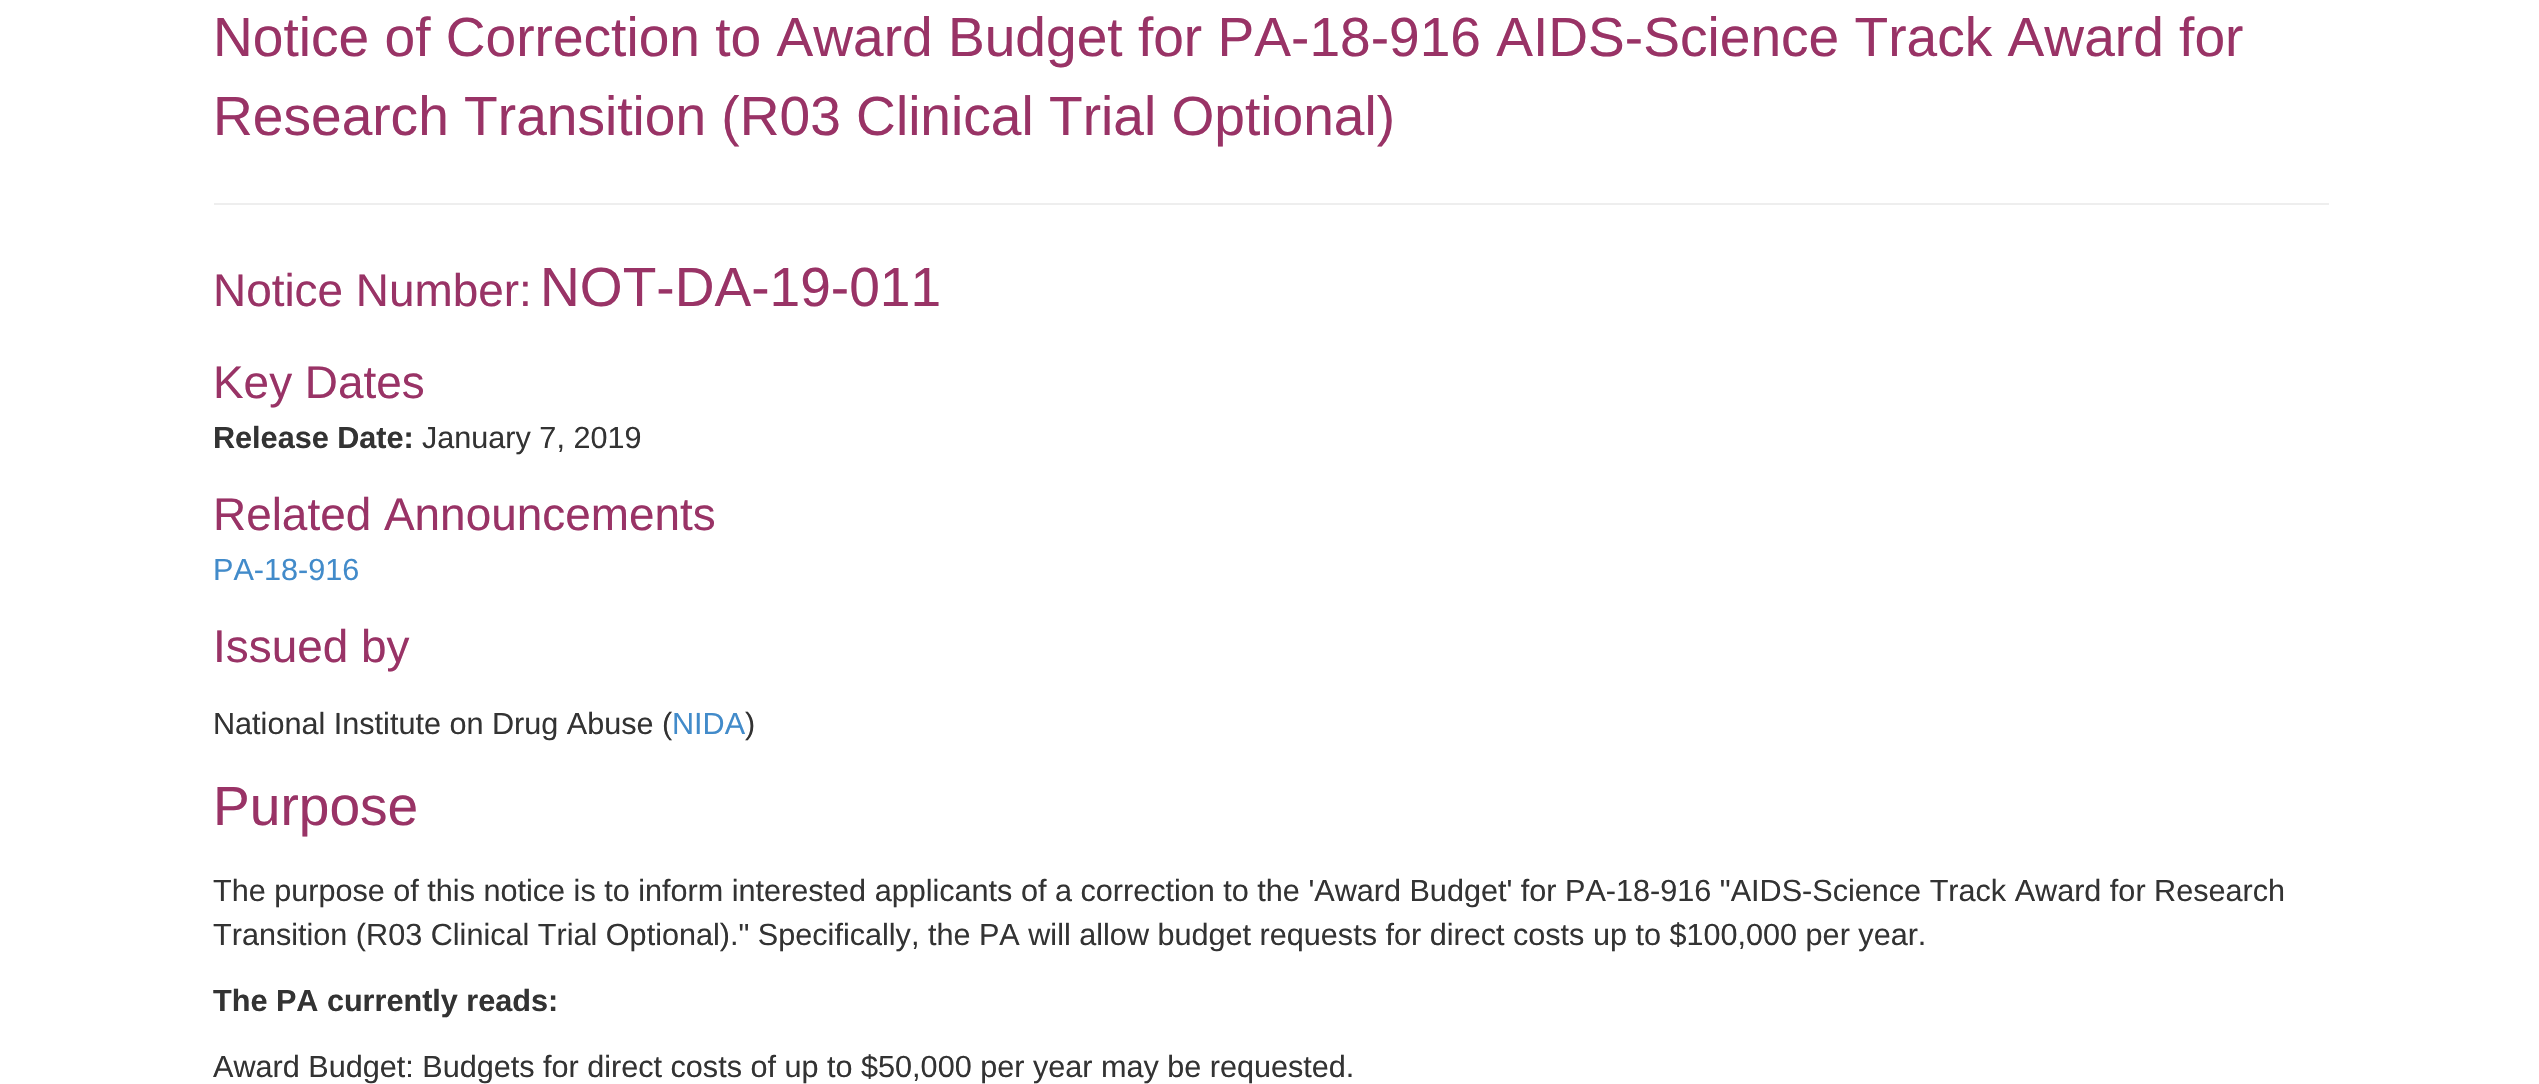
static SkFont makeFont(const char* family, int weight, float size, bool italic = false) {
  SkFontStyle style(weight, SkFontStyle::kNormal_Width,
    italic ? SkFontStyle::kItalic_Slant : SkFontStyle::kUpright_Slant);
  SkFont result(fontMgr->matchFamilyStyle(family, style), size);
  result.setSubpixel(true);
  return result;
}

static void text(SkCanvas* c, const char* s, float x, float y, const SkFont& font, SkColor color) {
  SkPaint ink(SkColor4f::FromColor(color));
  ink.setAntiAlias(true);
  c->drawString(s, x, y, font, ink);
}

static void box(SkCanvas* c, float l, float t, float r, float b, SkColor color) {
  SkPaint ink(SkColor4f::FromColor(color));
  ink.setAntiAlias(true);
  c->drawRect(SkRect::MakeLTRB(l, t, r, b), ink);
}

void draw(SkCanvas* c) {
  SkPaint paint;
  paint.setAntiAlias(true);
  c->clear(0xffffffff);
  SkFont face1 = makeFont("Liberation Sans", 400, 55.1f);
  text(c, "Notice of Correction to Award Budget for PA-18-916 AIDS-Science Track Award for", 213, 56, face1, 0xff993366);
  text(c, "Research Transition (R03 Clinical Trial Optional)", 213, 135, face1, 0xff993366);
  box(c, 214, 203, 2329, 205, 0xffeeeeee);
  SkFont face2 = makeFont("Liberation Sans", 400, 45.9f);
  text(c, "Notice Number:", 213, 306, face2, 0xff993366);
  text(c, "NOT-DA-19-011", 540, 306, face1, 0xff993366);
  text(c, "Key Dates", 213, 398, face2, 0xff993366);
  SkFont face3 = makeFont("Liberation Sans", 700, 30.6f);
  text(c, "Release Date:", 213, 448, face3, 0xff333333);
  SkFont face4 = makeFont("Liberation Sans", 400, 30.6f);
  text(c, "January 7, 2019", 422, 448, face4, 0xff333333);
  text(c, "Related Announcements", 213, 530, face2, 0xff993366);
  text(c, "PA-18-916", 213, 580, face4, 0xff428bca);
  text(c, "Issued by", 213, 662, face2, 0xff993366);
  text(c, "National Institute on Drug Abuse (", 213, 734, face4, 0xff333333);
  text(c, "NIDA", 672, 734, face4, 0xff428bca);
  text(c, ")", 745, 734, face4, 0xff333333);
  text(c, "Purpose", 213, 825, face1, 0xff993366);
  text(c, "The purpose of this notice is to inform interested applicants of a correction to the 'Award Budget' for PA-18-916 \"AIDS-Science Track Award for Research", 213, 901, face4, 0xff333333);
  text(c, "Transition (R03 Clinical Trial Optional).\" Specifically, the PA will allow budget requests for direct costs up to $100,000 per year.", 213, 945, face4, 0xff333333);
  text(c, "The PA currently reads:", 213, 1011, face3, 0xff333333);
  text(c, "Award Budget: Budgets for direct costs of up to $50,000 per year may be requested.", 213, 1077, face4, 0xff333333);
}
